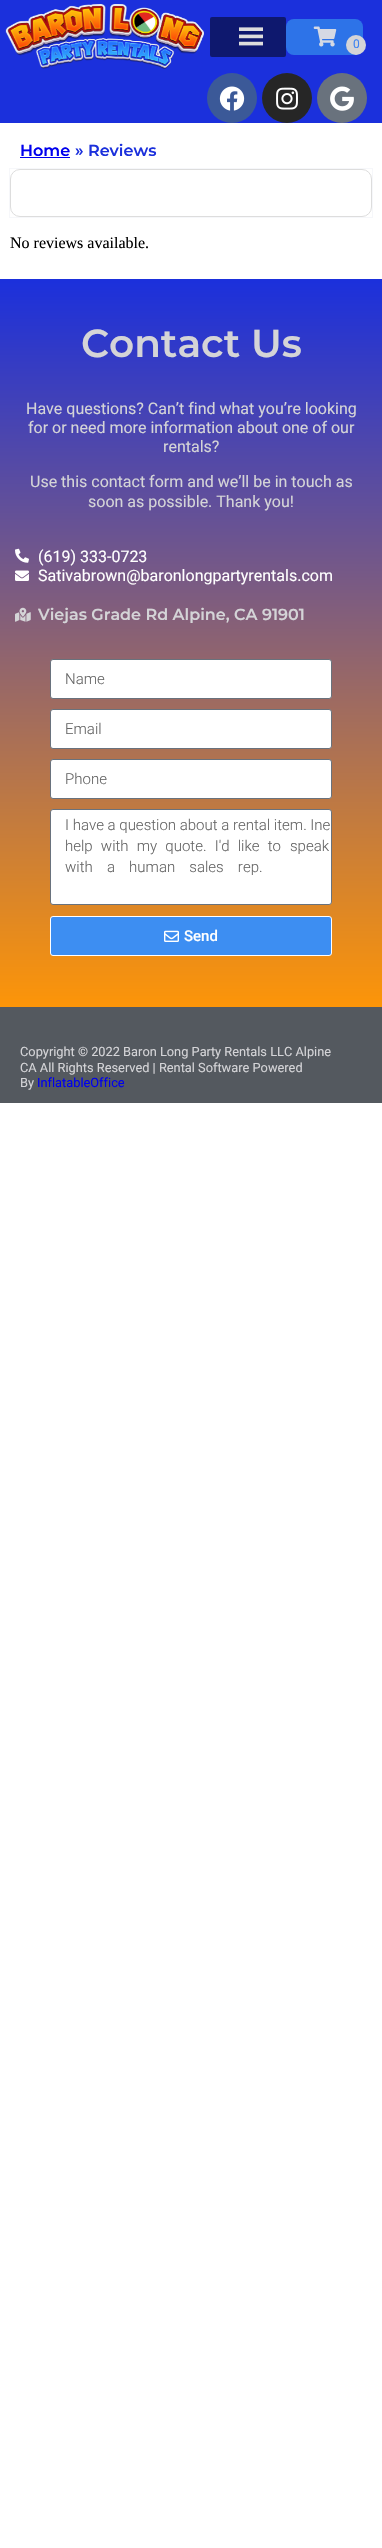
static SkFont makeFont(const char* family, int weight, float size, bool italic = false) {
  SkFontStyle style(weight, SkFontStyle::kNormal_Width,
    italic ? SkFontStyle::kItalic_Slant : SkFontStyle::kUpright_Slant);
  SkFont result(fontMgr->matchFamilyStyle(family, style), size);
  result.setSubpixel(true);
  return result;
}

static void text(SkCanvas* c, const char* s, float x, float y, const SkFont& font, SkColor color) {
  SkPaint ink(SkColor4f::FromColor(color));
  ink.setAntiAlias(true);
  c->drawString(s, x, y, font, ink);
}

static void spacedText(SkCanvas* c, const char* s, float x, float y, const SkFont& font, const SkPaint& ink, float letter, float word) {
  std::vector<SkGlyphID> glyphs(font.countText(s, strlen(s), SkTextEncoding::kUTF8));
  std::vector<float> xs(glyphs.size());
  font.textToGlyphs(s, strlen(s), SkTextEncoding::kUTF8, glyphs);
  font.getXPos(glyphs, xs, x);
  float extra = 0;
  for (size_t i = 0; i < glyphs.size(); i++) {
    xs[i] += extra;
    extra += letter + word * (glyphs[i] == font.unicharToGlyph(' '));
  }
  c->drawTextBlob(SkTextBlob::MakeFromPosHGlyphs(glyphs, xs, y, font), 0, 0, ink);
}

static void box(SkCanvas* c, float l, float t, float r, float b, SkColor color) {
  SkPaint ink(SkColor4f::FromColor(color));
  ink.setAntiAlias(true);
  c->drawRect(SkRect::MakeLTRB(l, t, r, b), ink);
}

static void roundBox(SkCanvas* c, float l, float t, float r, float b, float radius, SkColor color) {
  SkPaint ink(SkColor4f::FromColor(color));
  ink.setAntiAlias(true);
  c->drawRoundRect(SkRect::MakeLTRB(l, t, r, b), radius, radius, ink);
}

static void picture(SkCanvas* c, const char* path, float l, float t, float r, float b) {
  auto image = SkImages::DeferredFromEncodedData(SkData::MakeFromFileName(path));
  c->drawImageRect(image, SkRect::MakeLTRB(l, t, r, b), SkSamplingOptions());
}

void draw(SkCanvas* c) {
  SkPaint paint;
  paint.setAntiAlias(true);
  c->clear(0xffffffff);
  box(c, 0, 0, 382, 123, 0xff1b30dc);
  paint.setColor(0xff3b5998);
  c->drawCircle(232, 98, 25, paint);
  picture(c, "img_01.png", 219, 86, 245, 111);
  paint.setColor(0xff262626);
  c->drawCircle(287, 98, 25, paint);
  picture(c, "img_02.png", 276, 87, 298, 110);
  paint.setColor(0xff69727d);
  c->drawCircle(342, 98, 25, paint);
  picture(c, "img_03.png", 330, 86, 354, 111);
  picture(c, "img_04.png", 5, 4, 204, 69);
  roundBox(c, 210, 17, 286, 57, 2, 0xff0e186e);
  picture(c, "img_05.png", 239, 27, 263, 46);
  roundBox(c, 286, 19, 363, 55, 8, 0xff2d73e8);
  picture(c, "img_06.png", 313, 26, 337, 47);
  paint.setColor(0xffd4d4d7);
  c->drawCircle(356, 45, 10, paint);
  SkFont face1 = makeFont("Roboto", 400, 12);
  text(c, "0", 353, 48, face1, 0xff3d83f2);
  SkFont face2 = makeFont("Montserrat", 600, 16);
  text(c, "Home", 20, 156, face2, 0xff0000ee);
  box(c, 20, 157, 70, 158, 0xff0000ee);
  text(c, "» Reviews", 75, 156, face2, 0xff1b30dc);
  paint.setStyle(SkPaint::kStroke_Style);
  paint.setStrokeWidth(1);
  paint.setColor(0x0a0e3f7e);
  c->drawRect(SkRect::MakeLTRB(9.5f, 168.5f, 372.5f, 217.5f), paint);
  paint.setColor(0xffdddddd);
  c->drawRoundRect(SkRect::MakeLTRB(10.5f, 169.5f, 371.5f, 216.5f), 9.5f, 9.5f, paint);
  SkFont face3 = makeFont("Liberation Serif", 400, 16);
  text(c, "No reviews available.", 10, 248, face3, 0xff000000);
  paint.setStyle(SkPaint::kFill_Style);
  {
    const SkColor colors[] = {0xff1b30dc, 0xfffd9508};
    const float stops[] = {0, 1};
    const SkPoint ends[] = {{191, 279}, {191, 1007}};
    paint.setShader(SkGradientShader::MakeLinear(ends, colors, stops, 2, SkTileMode::kClamp));
    paint.setAlpha(255);
  }
  c->drawRect(SkRect::MakeLTRB(0, 279, 382, 1007), paint);
  SkFont face4 = makeFont("Montserrat", 600, 39);
  text(c, "Contact Us", 81, 357, face4, 0xffd4d4d7);
  SkFont face5 = makeFont("Roboto", 400, 16);
  text(c, "Have questions? Can’t find what you’re looking", 26, 414, face5, 0xffd4d4d7);
  text(c, "for or need more information about one of our", 28, 433, face5, 0xffd4d4d7);
  text(c, "rentals?", 163, 452, face5, 0xffd4d4d7);
  text(c, "Use this contact form and we’ll be in touch as", 30, 487, face5, 0xffd4d4d7);
  text(c, "soon as possible. Thank you!", 88, 507, face5, 0xffd4d4d7);
  picture(c, "img_07.png", 15, 548, 29, 563);
  text(c, "(619) 333-0723", 38, 562, face5, 0xffffffff);
  picture(c, "img_08.png", 15, 570, 29, 581);
  text(c, "Sativabrown@baronlongpartyrentals.com", 38, 581, face5, 0xffffffff);
  picture(c, "img_09.png", 15, 607, 31, 622);
  text(c, "Viejas Grade Rd Alpine, CA 91901", 38, 620, face2, 0xffd4d4d7);
  paint.setShader(nullptr);
  paint.setColor(0xffffffff);
  c->drawRoundRect(SkRect::MakeLTRB(50.5f, 659.5f, 331.5f, 698.5f), 2.5f, 2.5f, paint);
  paint.setStyle(SkPaint::kStroke_Style);
  paint.setColor(0xff69727d);
  c->drawRoundRect(SkRect::MakeLTRB(50.5f, 659.5f, 331.5f, 698.5f), 2.5f, 2.5f, paint);
  SkFont face6 = makeFont("Roboto", 300, 15);
  text(c, "Name", 65, 684, face6, 0xff666666);
  paint.setStyle(SkPaint::kFill_Style);
  paint.setColor(0xffffffff);
  c->drawRoundRect(SkRect::MakeLTRB(50.5f, 709.5f, 331.5f, 748.5f), 2.5f, 2.5f, paint);
  paint.setStyle(SkPaint::kStroke_Style);
  paint.setColor(0xff69727d);
  c->drawRoundRect(SkRect::MakeLTRB(50.5f, 709.5f, 331.5f, 748.5f), 2.5f, 2.5f, paint);
  text(c, "Email", 65, 734, face6, 0xff666666);
  paint.setStyle(SkPaint::kFill_Style);
  paint.setColor(0xffffffff);
  c->drawRoundRect(SkRect::MakeLTRB(50.5f, 759.5f, 331.5f, 798.5f), 2.5f, 2.5f, paint);
  paint.setStyle(SkPaint::kStroke_Style);
  paint.setColor(0xff69727d);
  c->drawRoundRect(SkRect::MakeLTRB(50.5f, 759.5f, 331.5f, 798.5f), 2.5f, 2.5f, paint);
  text(c, "Phone", 65, 784, face6, 0xff666666);
  paint.setStyle(SkPaint::kFill_Style);
  paint.setColor(0xffffffff);
  c->drawRoundRect(SkRect::MakeLTRB(50.5f, 809.5f, 331.5f, 904.5f), 2.5f, 2.5f, paint);
  paint.setStyle(SkPaint::kStroke_Style);
  paint.setColor(0xff69727d);
  c->drawRoundRect(SkRect::MakeLTRB(50.5f, 809.5f, 331.5f, 904.5f), 2.5f, 2.5f, paint);
  text(c, "I have a question about a rental item. Ine", 65, 830, face6, 0xff666666);
  paint.setStyle(SkPaint::kFill_Style);
  paint.setColor(0xff666666);
  spacedText(c, "help with my quote. I'd like to", 65, 851, face6, paint, 0, 4.5f);
  text(c, "speak", 290, 851, face6, 0xff666666);
  spacedText(c, "with a human sales rep.", 65, 872, face6, paint, 0, 10.5f);
  paint.setColor(0xff3d8ef2);
  c->drawRoundRect(SkRect::MakeLTRB(50.5f, 916.5f, 331.5f, 955.5f), 2.5f, 2.5f, paint);
  paint.setStyle(SkPaint::kStroke_Style);
  paint.setColor(0xffffffff);
  c->drawRoundRect(SkRect::MakeLTRB(50.5f, 916.5f, 331.5f, 955.5f), 2.5f, 2.5f, paint);
  picture(c, "img_10.png", 164, 930, 179, 942);
  SkFont face7 = makeFont("Roboto", 500, 15);
  text(c, "Send", 184, 941, face7, 0xffffffff);
  box(c, 0, 1007, 382, 1103, 0xff54595f);
  SkFont face8 = makeFont("Roboto", 400, 12.8f);
  text(c, "Copyright © 2022 Baron Long Party Rentals LLC Alpine", 20, 1056, face8, 0xffd4d4d7);
  text(c, "CA All Rights Reserved | Rental Software Powered", 20, 1072, face8, 0xffd4d4d7);
  text(c, "By", 20, 1087, face8, 0xffd4d4d7);
  text(c, "InflatableOffice", 37, 1087, face8, 0xff0000ee);
}
